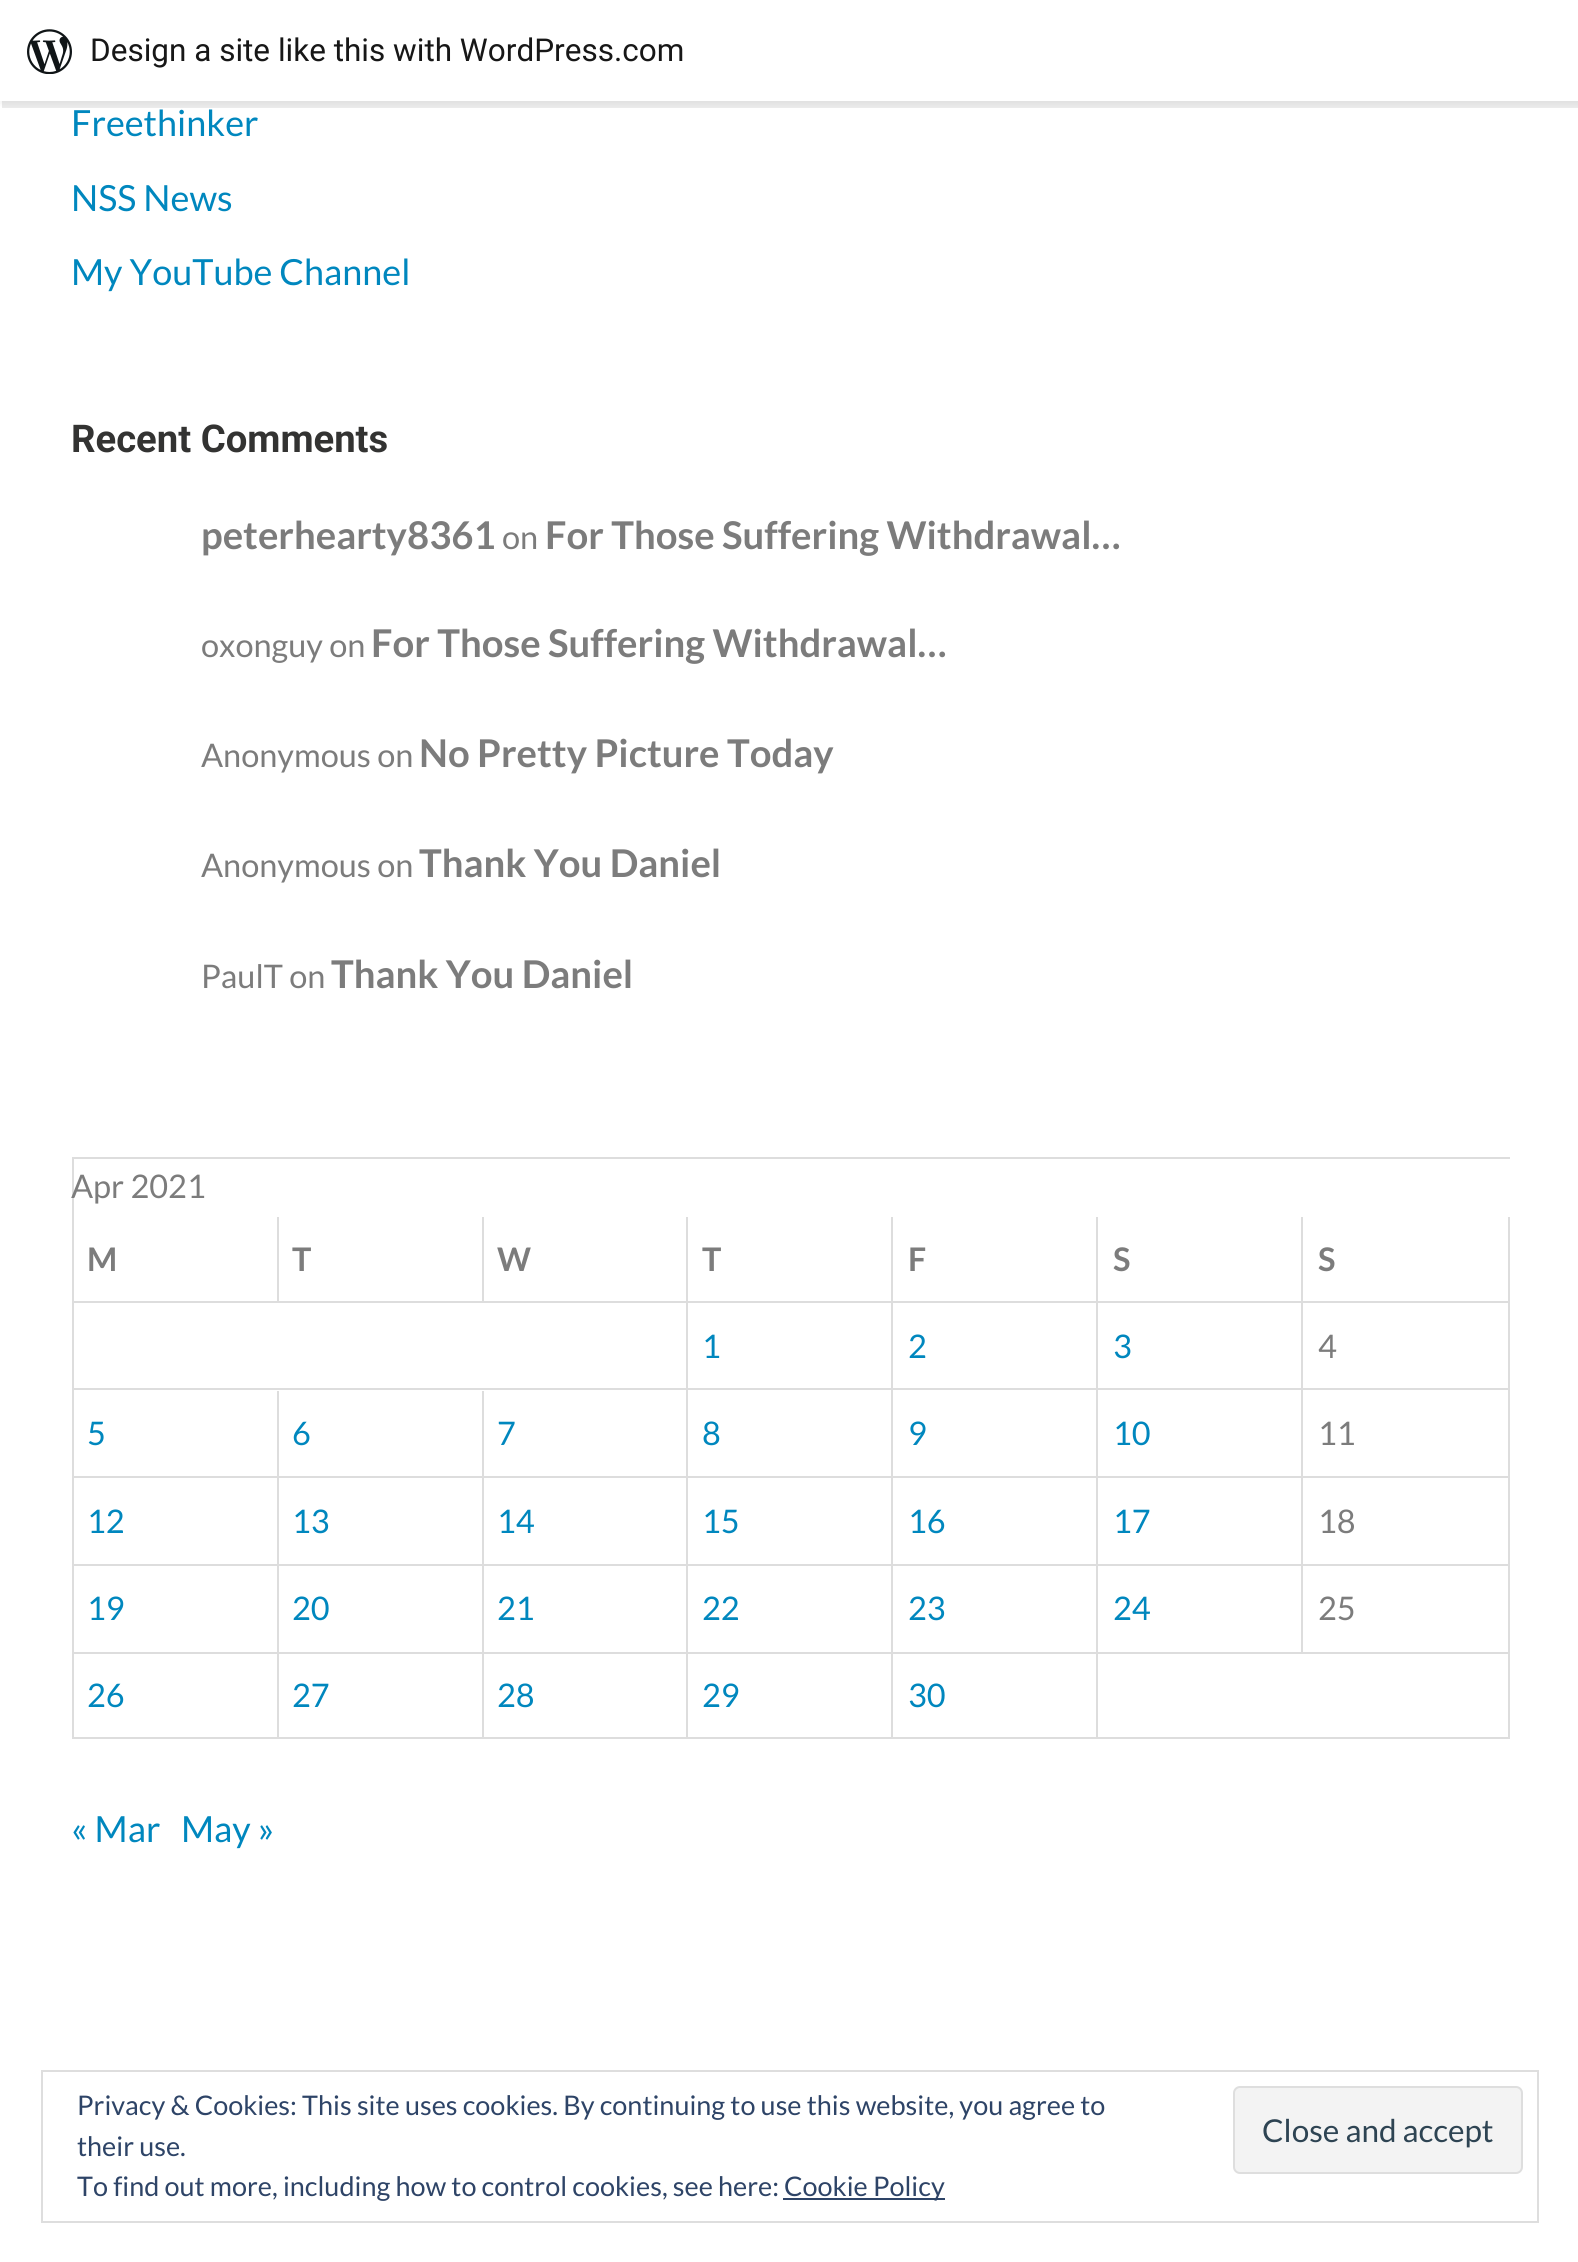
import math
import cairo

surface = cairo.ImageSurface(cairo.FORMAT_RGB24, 1578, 2262)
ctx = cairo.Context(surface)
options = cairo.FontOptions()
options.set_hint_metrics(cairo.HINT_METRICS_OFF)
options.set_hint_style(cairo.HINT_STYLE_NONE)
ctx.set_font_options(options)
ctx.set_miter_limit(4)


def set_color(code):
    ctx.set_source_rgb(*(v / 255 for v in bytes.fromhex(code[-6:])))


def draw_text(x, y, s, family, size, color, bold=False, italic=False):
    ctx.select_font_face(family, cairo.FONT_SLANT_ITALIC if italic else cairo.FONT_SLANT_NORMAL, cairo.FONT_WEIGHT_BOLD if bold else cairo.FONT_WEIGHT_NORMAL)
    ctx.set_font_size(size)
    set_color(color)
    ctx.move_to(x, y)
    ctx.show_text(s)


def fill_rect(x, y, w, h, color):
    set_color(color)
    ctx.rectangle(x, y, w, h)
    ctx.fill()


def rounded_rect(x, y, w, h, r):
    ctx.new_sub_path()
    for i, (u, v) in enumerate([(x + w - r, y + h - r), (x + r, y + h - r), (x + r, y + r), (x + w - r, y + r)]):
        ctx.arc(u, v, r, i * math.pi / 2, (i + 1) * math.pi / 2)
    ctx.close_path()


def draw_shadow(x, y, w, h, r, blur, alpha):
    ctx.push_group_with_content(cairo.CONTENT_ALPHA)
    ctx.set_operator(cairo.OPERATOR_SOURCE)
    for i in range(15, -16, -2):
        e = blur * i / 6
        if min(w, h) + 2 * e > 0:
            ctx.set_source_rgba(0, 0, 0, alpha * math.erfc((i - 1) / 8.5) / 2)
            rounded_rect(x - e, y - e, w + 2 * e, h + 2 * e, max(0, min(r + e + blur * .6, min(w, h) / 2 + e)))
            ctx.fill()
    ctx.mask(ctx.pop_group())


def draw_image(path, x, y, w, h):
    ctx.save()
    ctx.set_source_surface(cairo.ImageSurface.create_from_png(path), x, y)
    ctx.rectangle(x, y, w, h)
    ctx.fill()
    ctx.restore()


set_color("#ffffff")
ctx.paint()
set_color("#000000")
draw_shadow(0, 2, 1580, 102, 0, 2, 0.05)
ctx.set_source_rgba(0, 0, 0, 0.08)
ctx.new_path()
ctx.move_to(2, 101)
ctx.line_to(2, 108)
ctx.line_to(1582, 108)
ctx.line_to(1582, 7)
ctx.line_to(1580, 7)
ctx.line_to(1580, 101)
ctx.close_path()
ctx.fill()
fill_rect(0, 0, 1578, 101, "#ffffff")
draw_image("assets/img1.png", 27, 29, 45, 45)
draw_text(90, 61, "Design a site like this with WordPress.com", "Roboto", 31.5, "#171717")
draw_text(71, 136, "Freethinker", "Lato", 36, "#0087be")
draw_text(71, 211, "NSS News", "Lato", 36, "#0087be")
draw_text(71, 285, "My YouTube Channel", "Lato", 36, "#0087be")
draw_text(71, 452, "Recent Comments", "Roboto", 38.25, "#333332", bold=True)
draw_text(201, 549, "peterhearty8361", "Lato", 38.25, "#7c7c7c", bold=True)
draw_text(502, 549, "on", "Lato", 32.5, "#7c7c7c")
draw_text(545, 549, "For Those Suffering Withdrawal…", "Lato", 38.25, "#7c7c7c", bold=True)
draw_text(201, 657, "oxonguy on", "Lato", 32.5, "#7c7c7c")
draw_text(371, 657, "For Those Suffering Withdrawal…", "Lato", 38.25, "#7c7c7c", bold=True)
draw_text(201, 767, "Anonymous on", "Lato", 32.5, "#7c7c7c")
draw_text(419, 767, "No Pretty Picture Today", "Lato", 38.25, "#7c7c7c", bold=True)
draw_text(201, 877, "Anonymous on", "Lato", 32.5, "#7c7c7c")
draw_text(419, 877, "Thank You Daniel", "Lato", 38.25, "#7c7c7c", bold=True)
draw_text(201, 988, "PaulT on", "Lato", 32.5, "#7c7c7c")
draw_text(331, 988, "Thank You Daniel", "Lato", 38.25, "#7c7c7c", bold=True)
fill_rect(72, 1157, 1438, 2, "#dddddd")
fill_rect(72, 1157, 2, 582, "#dddddd")
draw_text(71, 1198, "Apr 2021", "Lato", 32.5, "#7c7c7c")
fill_rect(277, 1217, 2, 86, "#dddddd")
fill_rect(74, 1301, 205, 2, "#dddddd")
draw_text(87, 1271, "M", "Lato", 32.5, "#7c7c7c", bold=True)
fill_rect(482, 1217, 2, 86, "#dddddd")
fill_rect(279, 1301, 205, 2, "#dddddd")
draw_text(292, 1271, "T", "Lato", 32.5, "#7c7c7c", bold=True)
fill_rect(686, 1217, 2, 522, "#dddddd")
fill_rect(484, 1301, 205, 2, "#dddddd")
draw_text(497, 1271, "W", "Lato", 32.5, "#7c7c7c", bold=True)
fill_rect(891, 1217, 2, 522, "#dddddd")
fill_rect(689, 1301, 204, 2, "#dddddd")
draw_text(702, 1271, "T", "Lato", 32.5, "#7c7c7c", bold=True)
fill_rect(1096, 1217, 2, 522, "#dddddd")
fill_rect(893, 1301, 205, 2, "#dddddd")
draw_text(908, 1271, "F", "Lato", 32.5, "#7c7c7c", bold=True)
fill_rect(1301, 1217, 2, 437, "#dddddd")
fill_rect(1098, 1301, 205, 2, "#dddddd")
draw_text(1113, 1271, "S", "Lato", 32.5, "#7c7c7c", bold=True)
fill_rect(1508, 1217, 2, 522, "#dddddd")
fill_rect(1303, 1301, 207, 2, "#dddddd")
draw_text(1318, 1271, "S", "Lato", 32.5, "#7c7c7c", bold=True)
draw_text(702, 1358, "1", "Lato", 32.5, "#0087be")
draw_text(908, 1358, "2", "Lato", 32.5, "#0087be")
draw_text(1113, 1358, "3", "Lato", 32.5, "#0087be")
draw_text(1318, 1358, "4", "Lato", 32.5, "#7c7c7c")
fill_rect(74, 1388, 1436, 2, "#dddddd")
fill_rect(277, 1391, 2, 348, "#dddddd")
fill_rect(74, 1476, 205, 2, "#dddddd")
draw_text(87, 1445, "5", "Lato", 32.5, "#0087be")
fill_rect(482, 1391, 2, 348, "#dddddd")
fill_rect(279, 1476, 1231, 2, "#dddddd")
draw_text(292, 1445, "6", "Lato", 32.5, "#0087be")
draw_text(497, 1445, "7", "Lato", 32.5, "#0087be")
draw_text(702, 1445, "8", "Lato", 32.5, "#0087be")
draw_text(908, 1445, "9", "Lato", 32.5, "#0087be")
draw_text(1113, 1445, "10", "Lato", 32.5, "#0087be")
draw_text(1318, 1445, "11", "Lato", 32.5, "#7c7c7c")
fill_rect(74, 1564, 1436, 2, "#dddddd")
draw_text(87, 1533, "12", "Lato", 32.5, "#0087be")
draw_text(292, 1533, "13", "Lato", 32.5, "#0087be")
draw_text(497, 1533, "14", "Lato", 32.5, "#0087be")
draw_text(702, 1533, "15", "Lato", 32.5, "#0087be")
draw_text(908, 1533, "16", "Lato", 32.5, "#0087be")
draw_text(1113, 1533, "17", "Lato", 32.5, "#0087be")
draw_text(1318, 1533, "18", "Lato", 32.5, "#7c7c7c")
fill_rect(74, 1652, 1436, 2, "#dddddd")
draw_text(87, 1620, "19", "Lato", 32.5, "#0087be")
draw_text(292, 1620, "20", "Lato", 32.5, "#0087be")
draw_text(497, 1620, "21", "Lato", 32.5, "#0087be")
draw_text(702, 1620, "22", "Lato", 32.5, "#0087be")
draw_text(908, 1620, "23", "Lato", 32.5, "#0087be")
draw_text(1113, 1620, "24", "Lato", 32.5, "#0087be")
draw_text(1318, 1620, "25", "Lato", 32.5, "#7c7c7c")
fill_rect(74, 1737, 1436, 2, "#dddddd")
draw_text(87, 1707, "26", "Lato", 32.5, "#0087be")
draw_text(292, 1707, "27", "Lato", 32.5, "#0087be")
draw_text(497, 1707, "28", "Lato", 32.5, "#0087be")
draw_text(702, 1707, "29", "Lato", 32.5, "#0087be")
draw_text(908, 1707, "30", "Lato", 32.5, "#0087be")
draw_text(71, 1842, "« Mar", "Lato", 36, "#0087be")
draw_text(181, 1842, "May »", "Lato", 36, "#0087be")
ctx.rectangle(42, 2071, 1496, 151)
set_color("#dedede")
ctx.stroke()
draw_text(77, 2115, "Privacy & Cookies: This site uses cookies. By continuing to use this website, you agree to", "Lato", 27, "#2e4467")
draw_text(77, 2156, "their use.", "Lato", 27, "#2e4467")
set_color("#f3f3f3")
rounded_rect(1234, 2087, 288, 86, 6)
ctx.fill_preserve()
set_color("#dedede")
ctx.stroke()
draw_text(1262, 2142, "Close and accept", "Lato", 31.5, "#2e4453")
draw_text(77, 2196, "To find out more, including how to control cookies, see here:", "Lato", 27, "#2e4467")
fill_rect(783, 2198, 162, 2, "#2e4467")
draw_text(784, 2196, "Cookie Policy", "Lato", 27, "#2e4467")
surface.write_to_png("output.png")
